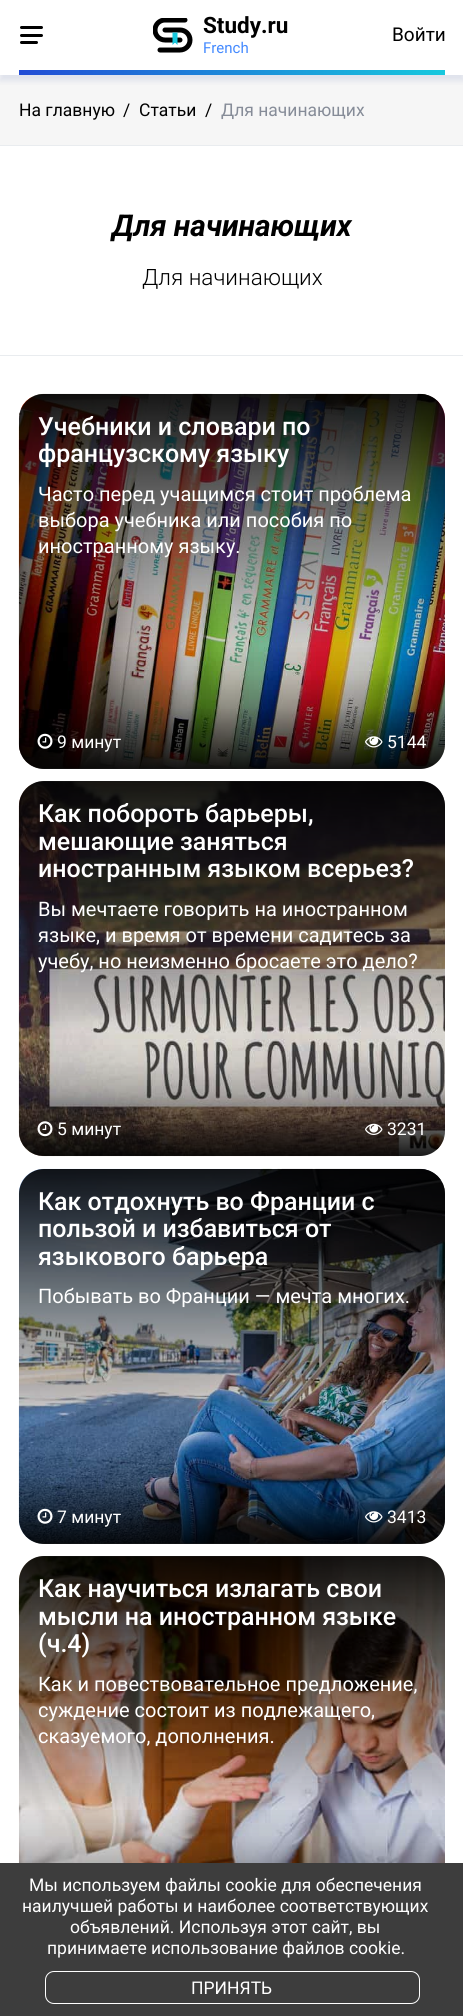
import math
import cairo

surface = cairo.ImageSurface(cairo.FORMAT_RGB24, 463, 2016)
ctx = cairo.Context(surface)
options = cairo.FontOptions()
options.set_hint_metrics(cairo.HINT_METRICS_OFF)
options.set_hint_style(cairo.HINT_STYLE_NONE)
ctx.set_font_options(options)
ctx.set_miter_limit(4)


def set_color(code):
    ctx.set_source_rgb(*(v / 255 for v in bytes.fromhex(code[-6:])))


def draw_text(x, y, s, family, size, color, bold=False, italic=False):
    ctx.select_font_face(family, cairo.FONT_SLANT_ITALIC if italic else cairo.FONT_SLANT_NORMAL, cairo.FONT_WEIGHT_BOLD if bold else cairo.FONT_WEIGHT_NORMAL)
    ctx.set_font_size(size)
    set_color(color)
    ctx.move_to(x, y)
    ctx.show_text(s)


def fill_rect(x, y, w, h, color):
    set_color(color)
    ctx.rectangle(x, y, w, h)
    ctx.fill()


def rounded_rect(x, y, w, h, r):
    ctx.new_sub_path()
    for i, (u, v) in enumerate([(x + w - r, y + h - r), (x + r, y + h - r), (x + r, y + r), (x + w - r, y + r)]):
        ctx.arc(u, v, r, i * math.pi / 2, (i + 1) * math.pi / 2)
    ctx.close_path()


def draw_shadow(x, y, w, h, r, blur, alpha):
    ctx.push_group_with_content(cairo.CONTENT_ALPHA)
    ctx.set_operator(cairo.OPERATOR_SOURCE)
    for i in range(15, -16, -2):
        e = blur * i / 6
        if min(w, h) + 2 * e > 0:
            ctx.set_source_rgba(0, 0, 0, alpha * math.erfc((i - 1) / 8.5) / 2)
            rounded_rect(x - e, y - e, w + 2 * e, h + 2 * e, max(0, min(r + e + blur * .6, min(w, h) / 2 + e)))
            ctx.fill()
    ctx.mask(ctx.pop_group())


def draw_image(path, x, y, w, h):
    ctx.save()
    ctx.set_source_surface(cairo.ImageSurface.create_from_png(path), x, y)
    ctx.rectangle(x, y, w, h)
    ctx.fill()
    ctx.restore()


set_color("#ffffff")
ctx.paint()
fill_rect(0, 75, 463, 70, "#f6f6f6")
ctx.save()
ctx.rectangle(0, 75, 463, 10)
ctx.clip()
set_color("#a8b3d3")
draw_shadow(0, 6, 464, 75, 0, 3, 0.3)
ctx.restore()
set_color("#000000")
rounded_rect(20, 26, 23, 3, 1.5)
ctx.fill()
rounded_rect(20, 34, 23, 3, 1.5)
ctx.fill()
rounded_rect(20, 41, 18, 3, 1.5)
ctx.fill()
draw_image("assets/img1.png", 153, 18, 40, 35)
draw_text(203, 33, "Study.ru", "Roboto", 22.5, "#000000", bold=True)
draw_text(203, 53, "French", "Roboto", 15, "#448aff")
draw_text(392, 41, "Войти", "Roboto", 19, "#000000")
gradient = cairo.LinearGradient(19, 73, 445, 72)
gradient.add_color_stop_rgba(0, 0.133, 0.298, 0.835, 1)
gradient.add_color_stop_rgba(1, 0.09, 0.784, 0.871, 1)
ctx.set_source(gradient)
ctx.rectangle(19, 70, 426, 5)
ctx.fill()
draw_text(19, 116, "На главную", "Roboto", 17.5, "#000000")
draw_text(123, 116, "/", "Roboto", 17.5, "#000000")
draw_text(139, 116, "Статьи", "Roboto", 17.5, "#000000")
draw_text(205, 116, "/", "Roboto", 17.5, "#000000")
draw_text(221, 116, "Для начинающих", "Roboto", 17.5, "#868c98")
fill_rect(0, 145, 463, 1, "#e9ecef")
fill_rect(0, 355, 463, 1, "#e9ecef")
draw_text(112, 236, "Для начинающих", "Roboto", 30, "#000000", bold=True, italic=True)
draw_text(142, 285, "Для начинающих", "Roboto Light", 22.5, "#000000")
draw_image("assets/img2.png", 18, 393, 427, 376)
gradient = cairo.LinearGradient(232, 769, 232, 394)
gradient.add_color_stop_rgba(0, 0, 0, 0, 0)
gradient.add_color_stop_rgba(0.25, 0, 0, 0, 0)
gradient.add_color_stop_rgba(0.5, 0, 0, 0, 0.3)
gradient.add_color_stop_rgba(1, 0, 0, 0, 0.9)
ctx.set_source(gradient)
rounded_rect(19, 394, 426, 375, 25)
ctx.fill()
draw_text(38, 435, "Учебники и словари по", "Roboto Medium", 25, "#ffffff")
draw_text(38, 462, "французскому языку", "Roboto Medium", 25, "#ffffff")
draw_text(38, 501, "Часто перед учащимся стоит проблема", "Roboto", 20, "#ffffff")
draw_text(38, 527, "выбора учебника или пособия по", "Roboto", 20, "#ffffff")
draw_text(38, 553, "иностранному языку.", "Roboto", 20, "#ffffff")
gradient = cairo.LinearGradient(232, 644, 232, 769)
gradient.add_color_stop_rgba(0, 0, 0, 0, 0)
gradient.add_color_stop_rgba(0.5, 0, 0, 0, 0.3)
gradient.add_color_stop_rgba(1, 0, 0, 0, 0.9)
ctx.set_source(gradient)
ctx.new_path()
ctx.move_to(19, 644)
ctx.line_to(445, 644)
ctx.line_to(445, 744)
ctx.curve_to(445, 758, 434, 769, 420, 769)
ctx.line_to(44, 769)
ctx.curve_to(30, 769, 19, 758, 19, 744)
ctx.close_path()
ctx.fill()
draw_image("assets/img3.png", 37, 733, 16, 16)
draw_text(57, 748, "9 минут", "Roboto", 17.5, "#ffffff")
draw_image("assets/img4.png", 365, 736, 18, 12)
draw_text(387, 748, "5144", "Roboto", 17.5, "#ffffff")
draw_image("assets/img5.png", 18, 781, 427, 376)
gradient = cairo.LinearGradient(232, 1156, 232, 781)
gradient.add_color_stop_rgba(0, 0, 0, 0, 0)
gradient.add_color_stop_rgba(0.25, 0, 0, 0, 0)
gradient.add_color_stop_rgba(0.5, 0, 0, 0, 0.3)
gradient.add_color_stop_rgba(1, 0, 0, 0, 0.9)
ctx.set_source(gradient)
rounded_rect(19, 781, 426, 375, 25)
ctx.fill()
draw_text(38, 822, "Как побороть барьеры,", "Roboto Medium", 25, "#ffffff")
draw_text(38, 850, "мешающие заняться", "Roboto Medium", 25, "#ffffff")
draw_text(38, 877, "иностранным языком всерьез?", "Roboto Medium", 25, "#ffffff")
draw_text(38, 916, "Вы мечтаете говорить на иностранном", "Roboto", 20, "#ffffff")
draw_text(38, 942, "языке, и время от времени садитесь за", "Roboto", 20, "#ffffff")
draw_text(38, 968, "учебу, но неизменно бросаете это дело?", "Roboto", 20, "#ffffff")
gradient = cairo.LinearGradient(232, 1031, 232, 1156)
gradient.add_color_stop_rgba(0, 0, 0, 0, 0)
gradient.add_color_stop_rgba(0.5, 0, 0, 0, 0.3)
gradient.add_color_stop_rgba(1, 0, 0, 0, 0.9)
ctx.set_source(gradient)
ctx.new_path()
ctx.move_to(19, 1031)
ctx.line_to(445, 1031)
ctx.line_to(445, 1131)
ctx.curve_to(445, 1145, 434, 1156, 420, 1156)
ctx.line_to(44, 1156)
ctx.curve_to(30, 1156, 19, 1145, 19, 1131)
ctx.close_path()
ctx.fill()
draw_image("assets/img6.png", 37, 1121, 16, 16)
draw_text(57, 1135, "5 минут", "Roboto", 17.5, "#ffffff")
draw_image("assets/img7.png", 365, 1123, 18, 12)
draw_text(387, 1135, "3231", "Roboto", 17.5, "#ffffff")
draw_image("assets/img8.png", 18, 1168, 427, 376)
gradient = cairo.LinearGradient(232, 1544, 232, 1169)
gradient.add_color_stop_rgba(0, 0, 0, 0, 0)
gradient.add_color_stop_rgba(0.25, 0, 0, 0, 0)
gradient.add_color_stop_rgba(0.5, 0, 0, 0, 0.3)
gradient.add_color_stop_rgba(1, 0, 0, 0, 0.9)
ctx.set_source(gradient)
rounded_rect(19, 1169, 426, 375, 25)
ctx.fill()
draw_text(38, 1210, "Как отдохнуть во Франции с", "Roboto Medium", 25, "#ffffff")
draw_text(38, 1237, "пользой и избавиться от", "Roboto Medium", 25, "#ffffff")
draw_text(38, 1265, "языкового барьера", "Roboto Medium", 25, "#ffffff")
draw_text(38, 1303, "Побывать во Франции — мечта многих.", "Roboto", 20, "#ffffff")
gradient = cairo.LinearGradient(232, 1419, 232, 1544)
gradient.add_color_stop_rgba(0, 0, 0, 0, 0)
gradient.add_color_stop_rgba(0.5, 0, 0, 0, 0.3)
gradient.add_color_stop_rgba(1, 0, 0, 0, 0.9)
ctx.set_source(gradient)
ctx.new_path()
ctx.move_to(19, 1419)
ctx.line_to(445, 1419)
ctx.line_to(445, 1519)
ctx.curve_to(445, 1533, 434, 1544, 420, 1544)
ctx.line_to(44, 1544)
ctx.curve_to(30, 1544, 19, 1533, 19, 1519)
ctx.close_path()
ctx.fill()
draw_image("assets/img9.png", 37, 1508, 16, 16)
draw_text(57, 1523, "7 минут", "Roboto", 17.5, "#ffffff")
draw_image("assets/img10.png", 365, 1511, 18, 12)
draw_text(387, 1523, "3413", "Roboto", 17.5, "#ffffff")
draw_image("assets/img11.png", 18, 1556, 427, 307)
gradient = cairo.LinearGradient(232, 1931, 232, 1556)
gradient.add_color_stop_rgba(0, 0, 0, 0, 0)
gradient.add_color_stop_rgba(0.25, 0, 0, 0, 0)
gradient.add_color_stop_rgba(0.5, 0, 0, 0, 0.3)
gradient.add_color_stop_rgba(1, 0, 0, 0, 0.9)
ctx.set_source(gradient)
rounded_rect(19, 1556, 426, 375, 25)
ctx.fill()
draw_text(38, 1597, "Как научиться излагать свои", "Roboto Medium", 25, "#ffffff")
draw_text(38, 1625, "мысли на иностранном языке", "Roboto Medium", 25, "#ffffff")
draw_text(38, 1652, "(ч.4)", "Roboto Medium", 25, "#ffffff")
draw_text(38, 1691, "Как и повествовательное предложение,", "Roboto", 20, "#ffffff")
draw_text(38, 1717, "суждение состоит из подлежащего,", "Roboto", 20, "#ffffff")
draw_text(38, 1743, "сказуемого, дополнения.", "Roboto", 20, "#ffffff")
gradient = cairo.LinearGradient(232, 1806, 232, 1931)
gradient.add_color_stop_rgba(0, 0, 0, 0, 0)
gradient.add_color_stop_rgba(0.5, 0, 0, 0, 0.3)
gradient.add_color_stop_rgba(1, 0, 0, 0, 0.9)
ctx.set_source(gradient)
ctx.rectangle(19, 1810, 426, 53)
ctx.fill()
fill_rect(0, 1863, 463, 153, "#3d3d3d")
draw_text(29, 1891, "Мы используем файлы cookie для обеспечения", "Roboto", 17.5, "#ffffff")
draw_text(22, 1912, "наилучшей работы и наиболее соответствующих", "Roboto", 17.5, "#ffffff")
draw_text(70, 1933, "объявлений. Используя этот сайт, вы", "Roboto", 17.5, "#ffffff")
draw_text(47, 1954, "принимаете использование файлов cookie.", "Roboto", 17.5, "#ffffff")
rounded_rect(45.5, 1971.5, 374, 32, 8.5)
ctx.set_line_width(1)
ctx.stroke()
draw_text(191, 1994, "ПРИНЯТЬ", "Roboto", 17.5, "#ffffff")
surface.write_to_png("output.png")
